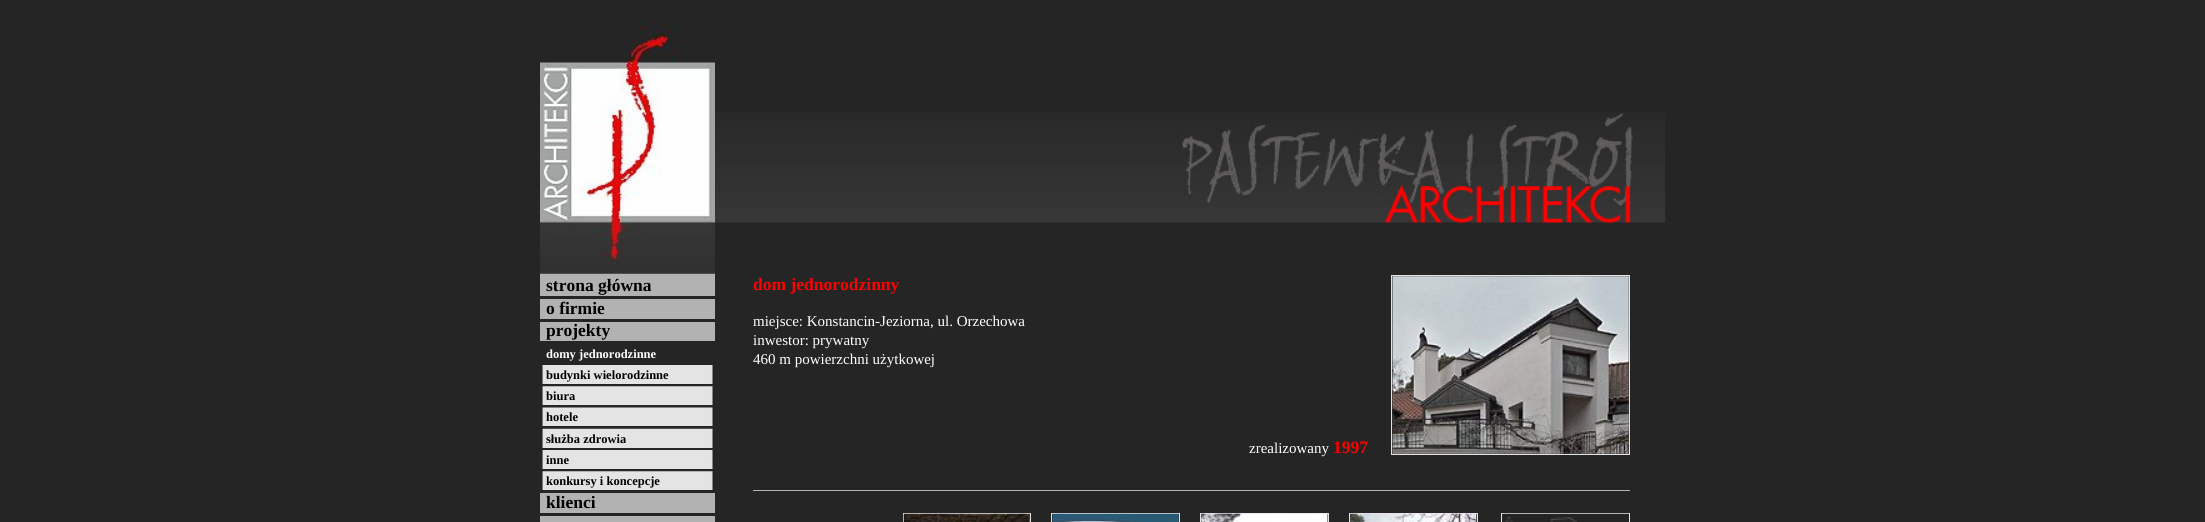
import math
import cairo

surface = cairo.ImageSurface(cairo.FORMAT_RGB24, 2205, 522)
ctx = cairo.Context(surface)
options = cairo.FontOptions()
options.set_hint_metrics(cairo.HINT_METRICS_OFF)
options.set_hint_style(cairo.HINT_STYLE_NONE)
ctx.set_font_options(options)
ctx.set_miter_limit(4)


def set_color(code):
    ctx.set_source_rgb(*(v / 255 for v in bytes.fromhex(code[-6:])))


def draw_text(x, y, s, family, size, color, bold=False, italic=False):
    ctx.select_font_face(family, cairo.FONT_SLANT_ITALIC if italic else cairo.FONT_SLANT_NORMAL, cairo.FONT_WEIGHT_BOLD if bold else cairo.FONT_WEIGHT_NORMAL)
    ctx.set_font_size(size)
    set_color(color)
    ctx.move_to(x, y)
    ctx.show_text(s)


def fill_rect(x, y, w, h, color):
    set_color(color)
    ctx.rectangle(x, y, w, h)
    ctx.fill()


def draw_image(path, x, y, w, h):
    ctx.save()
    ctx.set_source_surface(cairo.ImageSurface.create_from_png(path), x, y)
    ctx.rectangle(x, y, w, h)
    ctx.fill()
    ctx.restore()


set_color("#252525")
ctx.paint()
fill_rect(540, 273, 175, 249, "#b2b2b2")
draw_image("assets/img1.png", 540, 0, 175, 274)
fill_rect(540, 296, 175, 3, "#252525")
draw_text(546, 291, "strona główna", "Liberation Serif", 17.5, "#000000", bold=True)
fill_rect(540, 319, 175, 3, "#252525")
draw_text(546, 314, "o firmie", "Liberation Serif", 17.5, "#000000", bold=True)
fill_rect(540, 341, 175, 24, "#252525")
draw_text(546, 336, "projekty", "Liberation Serif", 17.5, "#000000", bold=True)
draw_text(546, 358, "domy jednorodzinne", "Liberation Serif", 12.5, "#ffffff", bold=True)
draw_image("assets/img2.png", 540, 365, 175, 19)
fill_rect(540, 384, 175, 3, "#252525")
draw_text(546, 379, "budynki wielorodzinne", "Liberation Serif", 12.5, "#000000", bold=True)
draw_image("assets/img3.png", 540, 386, 175, 19)
fill_rect(540, 405, 175, 3, "#252525")
draw_text(546, 400, "biura", "Liberation Serif", 12.5, "#000000", bold=True)
draw_image("assets/img4.png", 540, 407, 175, 19)
fill_rect(540, 426, 175, 3, "#252525")
draw_text(546, 421, "hotele", "Liberation Serif", 12.5, "#000000", bold=True)
draw_image("assets/img5.png", 540, 428, 175, 20)
fill_rect(540, 448, 175, 2, "#252525")
draw_text(546, 443, "służba zdrowia", "Liberation Serif", 12.5, "#000000", bold=True)
draw_image("assets/img2.png", 540, 450, 175, 19)
fill_rect(540, 469, 175, 3, "#252525")
draw_text(546, 464, "inne", "Liberation Serif", 12.5, "#000000", bold=True)
draw_image("assets/img3.png", 540, 471, 175, 19)
fill_rect(540, 490, 175, 3, "#252525")
draw_text(546, 485, "konkursy i koncepcje", "Liberation Serif", 12.5, "#000000", bold=True)
fill_rect(540, 513, 175, 3, "#252525")
draw_text(546, 508, "klienci", "Liberation Serif", 17.5, "#000000", bold=True)
draw_image("assets/img6.png", 715, 112, 950, 111)
draw_text(753, 290, "dom jednorodzinny", "Liberation Serif", 17.5, "#fe0000", bold=True)
draw_text(753, 326, "miejsce: Konstancin-Jeziorna, ul. Orzechowa", "Liberation Serif", 15, "#ffffff")
draw_text(753, 345, "inwestor: prywatny", "Liberation Serif", 15, "#ffffff")
draw_text(753, 364, "460 m powierzchni użytkowej", "Liberation Serif", 15, "#ffffff")
draw_text(1249, 453, "zrealizowany", "Liberation Serif", 15, "#ffffff")
draw_text(1333, 453, "1997", "Liberation Serif", 17.5, "#fe0000", bold=True)
ctx.rectangle(1391.5, 275.5, 238, 179)
set_color("#e4e2e7")
ctx.set_line_width(1)
ctx.stroke()
draw_image("assets/img7.png", 1392, 276, 237, 178)
fill_rect(753, 490, 877, 1, "#b2b2b2")
ctx.rectangle(903.5, 513.5, 127, 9)
set_color("#e4e2e7")
ctx.stroke()
draw_image("assets/img8.png", 903, 513, 127, 9)
ctx.rectangle(1051.5, 513.5, 128, 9)
ctx.stroke()
draw_image("assets/img9.png", 1052, 513, 127, 9)
ctx.rectangle(1200.5, 513.5, 128, 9)
ctx.stroke()
draw_image("assets/img10.png", 1201, 513, 127, 9)
ctx.rectangle(1349.5, 513.5, 128, 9)
ctx.stroke()
draw_image("assets/img11.png", 1350, 513, 127, 9)
ctx.rectangle(1501.5, 513.5, 128, 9)
ctx.stroke()
draw_image("assets/img12.png", 1502, 513, 127, 9)
surface.write_to_png("output.png")
